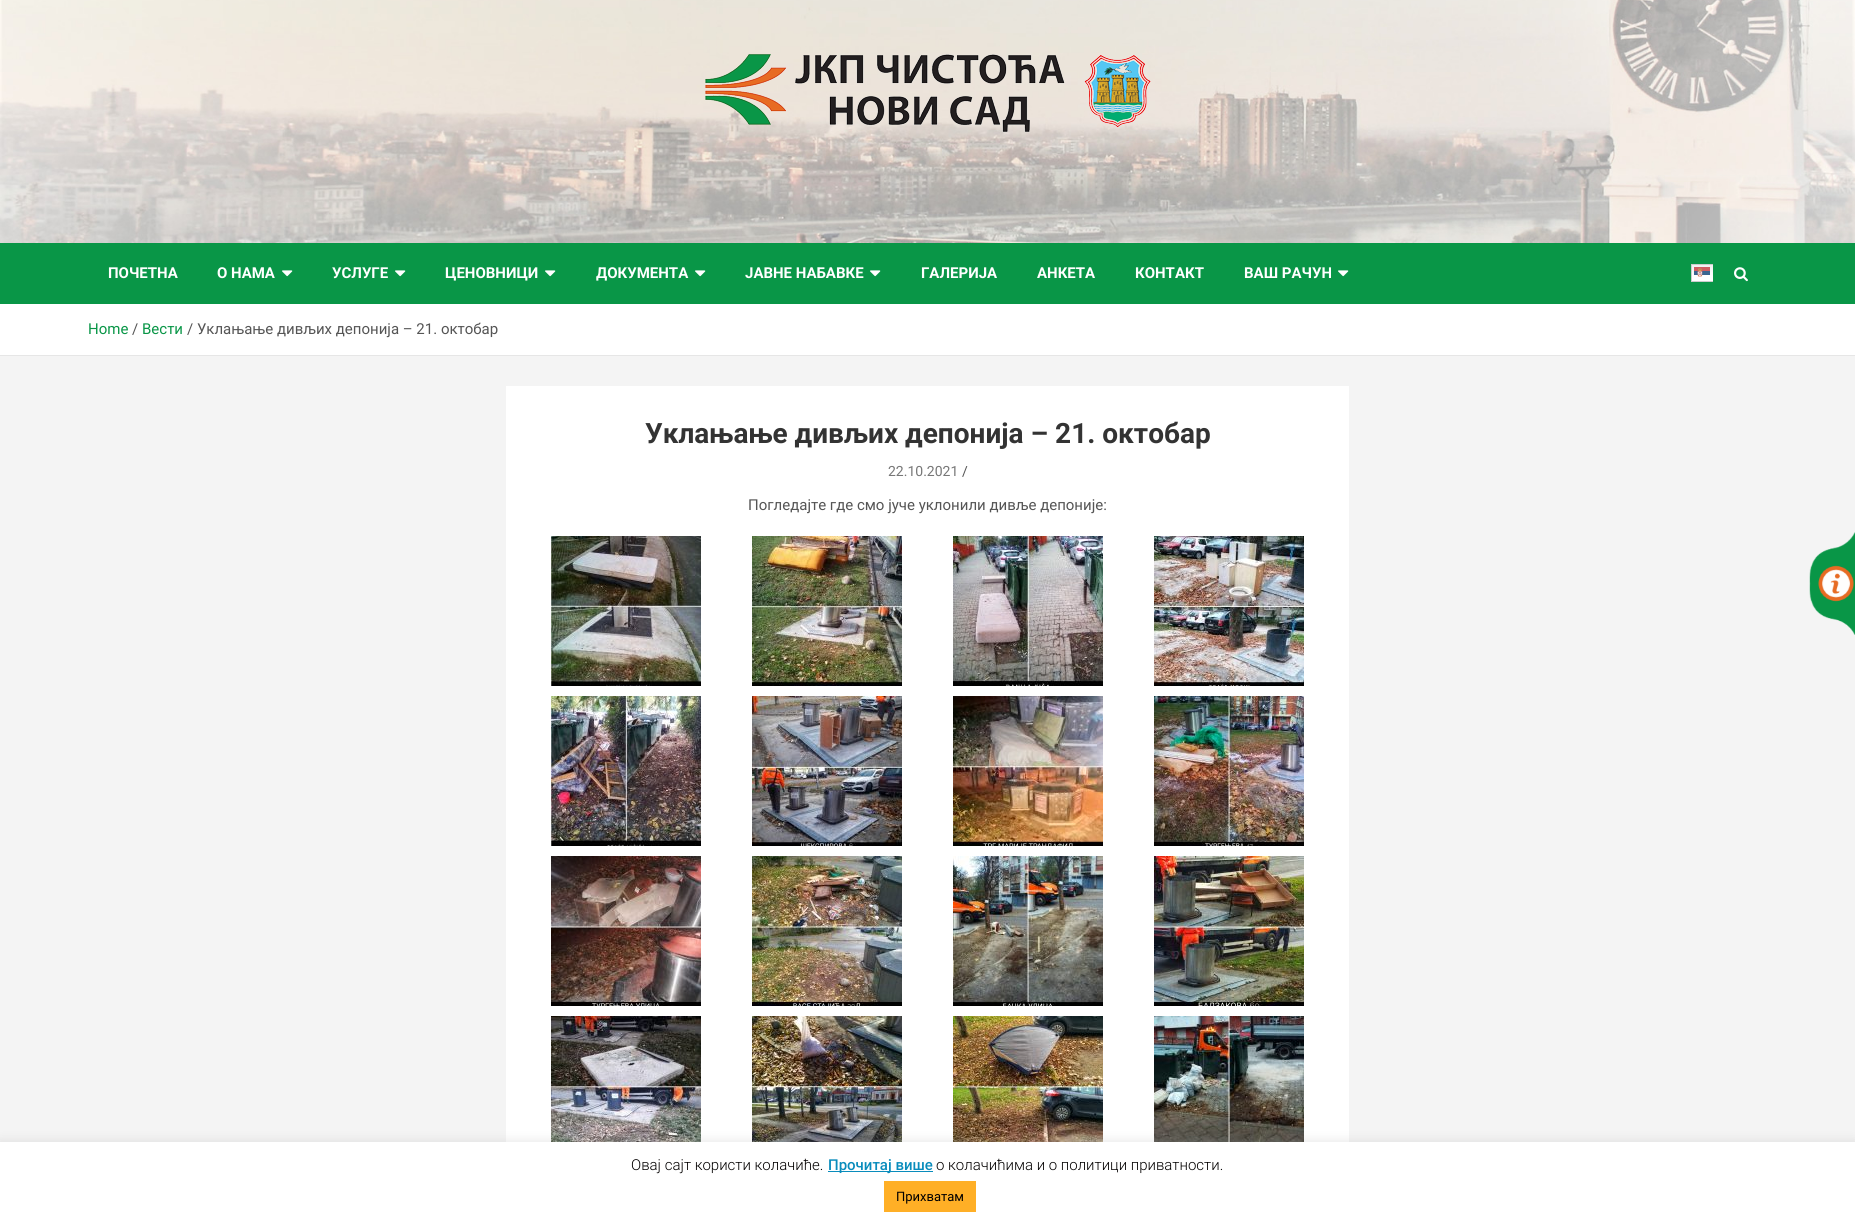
import math
import cairo

surface = cairo.ImageSurface(cairo.FORMAT_RGB24, 1855, 1224)
ctx = cairo.Context(surface)
options = cairo.FontOptions()
options.set_hint_metrics(cairo.HINT_METRICS_OFF)
options.set_hint_style(cairo.HINT_STYLE_NONE)
ctx.set_font_options(options)
ctx.set_miter_limit(4)


def set_color(code):
    ctx.set_source_rgb(*(v / 255 for v in bytes.fromhex(code[-6:])))


def draw_text(x, y, s, family, size, color, bold=False, italic=False):
    ctx.select_font_face(family, cairo.FONT_SLANT_ITALIC if italic else cairo.FONT_SLANT_NORMAL, cairo.FONT_WEIGHT_BOLD if bold else cairo.FONT_WEIGHT_NORMAL)
    ctx.set_font_size(size)
    set_color(color)
    ctx.move_to(x, y)
    ctx.show_text(s)


def fill_rect(x, y, w, h, color):
    set_color(color)
    ctx.rectangle(x, y, w, h)
    ctx.fill()


def rounded_rect(x, y, w, h, r):
    ctx.new_sub_path()
    for i, (u, v) in enumerate([(x + w - r, y + h - r), (x + r, y + h - r), (x + r, y + r), (x + w - r, y + r)]):
        ctx.arc(u, v, r, i * math.pi / 2, (i + 1) * math.pi / 2)
    ctx.close_path()


def draw_shadow(x, y, w, h, r, blur, alpha):
    ctx.push_group_with_content(cairo.CONTENT_ALPHA)
    ctx.set_operator(cairo.OPERATOR_SOURCE)
    for i in range(15, -16, -2):
        e = blur * i / 6
        if min(w, h) + 2 * e > 0:
            ctx.set_source_rgba(0, 0, 0, alpha * math.erfc((i - 1) / 8.5) / 2)
            rounded_rect(x - e, y - e, w + 2 * e, h + 2 * e, max(0, min(r + e + blur * .6, min(w, h) / 2 + e)))
            ctx.fill()
    ctx.mask(ctx.pop_group())


def draw_image(path, x, y, w, h):
    ctx.save()
    ctx.set_source_surface(cairo.ImageSurface.create_from_png(path), x, y)
    ctx.rectangle(x, y, w, h)
    ctx.fill()
    ctx.restore()


set_color("#f4f4f4")
ctx.paint()
draw_image("assets/img1.png", 0, 0, 1855, 243)
draw_image("assets/img2.png", 705, 54, 446, 79)
fill_rect(0, 243, 1855, 61, "#099647")
draw_text(108, 278, "ПОЧЕТНА", "Roboto", 15, "#ffffff", bold=True)
draw_text(217, 278, "О НАМА", "Roboto", 15, "#ffffff", bold=True)
draw_image("assets/img3.png", 282, 270, 11, 7)
draw_text(332, 278, "УСЛУГЕ", "Roboto", 15, "#ffffff", bold=True)
draw_image("assets/img3.png", 395, 270, 11, 7)
draw_text(445, 278, "ЦЕНОВНИЦИ", "Roboto", 15, "#ffffff", bold=True)
draw_image("assets/img3.png", 545, 270, 11, 7)
draw_text(596, 278, "ДОКУМЕНТА", "Roboto", 15, "#ffffff", bold=True)
draw_image("assets/img3.png", 695, 270, 11, 7)
draw_text(745, 278, "ЈАВНЕ НАБАВКЕ", "Roboto", 15, "#ffffff", bold=True)
draw_image("assets/img3.png", 870, 270, 11, 7)
draw_text(921, 278, "ГАЛЕРИЈА", "Roboto", 15, "#ffffff", bold=True)
draw_text(1037, 278, "АНКЕТА", "Roboto", 15, "#ffffff", bold=True)
draw_text(1135, 278, "КОНТАКТ", "Roboto", 15, "#ffffff", bold=True)
draw_text(1244, 278, "ВАШ РАЧУН", "Roboto", 15, "#ffffff", bold=True)
draw_image("assets/img3.png", 1338, 270, 11, 7)
gradient = cairo.LinearGradient(1773, 264, 1773, 282)
gradient.add_color_stop_rgba(0, 0.937, 0.937, 0.937, 1)
gradient.add_color_stop_rgba(0.7, 1, 1, 1, 1)
ctx.set_source(gradient)
ctx.rectangle(1692, 265, 21, 16)
ctx.fill()
draw_image("assets/img5.png", 1734, 267, 14, 15)
ctx.save()
ctx.rectangle(1691, 264, 22, 18)
ctx.clip()
ctx.rectangle(1691.5, 264.5, 156, 17)
set_color("#cccccc")
ctx.set_line_width(1)
ctx.stroke()
ctx.restore()
draw_image("assets/img4.png", 1694, 267, 16, 10)
fill_rect(0, 304, 1855, 51, "#ffffff")
fill_rect(0, 355, 1855, 1, "#e6e6e6")
draw_text(88, 334, "Home", "Roboto", 15, "#099647")
draw_text(132, 334, "/", "Roboto", 15, "#555555")
draw_text(142, 334, "Вести", "Roboto", 15, "#099647")
draw_text(187, 334, "/ Уклањање дивљих депонија – 21. октобар", "Roboto", 15, "#555555")
fill_rect(506, 386, 843, 756, "#ffffff")
draw_text(645, 443, "Уклањање дивљих депонија – 21. октобар", "Roboto", 28, "#333333", bold=True)
draw_text(888, 476, "22.10.2021", "Roboto", 14, "#777777")
draw_text(962, 476, "/", "Roboto", 14, "#555555")
draw_text(748, 510, "Погледајте где смо јуче уклонили дивље депоније:", "Roboto", 15, "#555555")
draw_image("assets/img6.png", 551, 536, 150, 150)
draw_image("assets/img7.png", 752, 536, 150, 150)
draw_image("assets/img8.png", 953, 536, 150, 150)
draw_image("assets/img9.png", 1154, 536, 150, 150)
draw_image("assets/img10.png", 551, 696, 150, 150)
draw_image("assets/img11.png", 752, 696, 150, 150)
draw_image("assets/img12.png", 953, 696, 150, 150)
draw_image("assets/img13.png", 1154, 696, 150, 150)
draw_image("assets/img14.png", 551, 856, 150, 150)
draw_image("assets/img15.png", 752, 856, 150, 150)
draw_image("assets/img16.png", 953, 856, 150, 150)
draw_image("assets/img17.png", 1154, 856, 150, 150)
draw_image("assets/img18.png", 551, 1016, 150, 126)
draw_image("assets/img19.png", 752, 1016, 150, 126)
draw_image("assets/img20.png", 953, 1016, 150, 126)
draw_image("assets/img21.png", 1154, 1016, 150, 126)
draw_image("assets/img22.png", 1809, 532, 46, 103)
set_color("#acabab")
draw_shadow(0, 1141, 1855, 82, 0, 5, 0.3)
fill_rect(0, 1142, 1855, 82, "#ffffff")
draw_text(631, 1170, "Овај сајт користи колачиће.", "Roboto Light", 15, "#020000")
fill_rect(828, 1171, 105, 1, "#098cbc")
draw_text(828, 1170, "Прочитај више", "Roboto Medium", 15, "#098cbc")
draw_text(936, 1170, "о колачићима и о политици приватности.", "Roboto Light", 15, "#020000")
fill_rect(884, 1181, 92, 31, "#ffaf26")
draw_text(896, 1201, "Прихватам", "Roboto", 13, "#020000")
surface.write_to_png("output.png")
